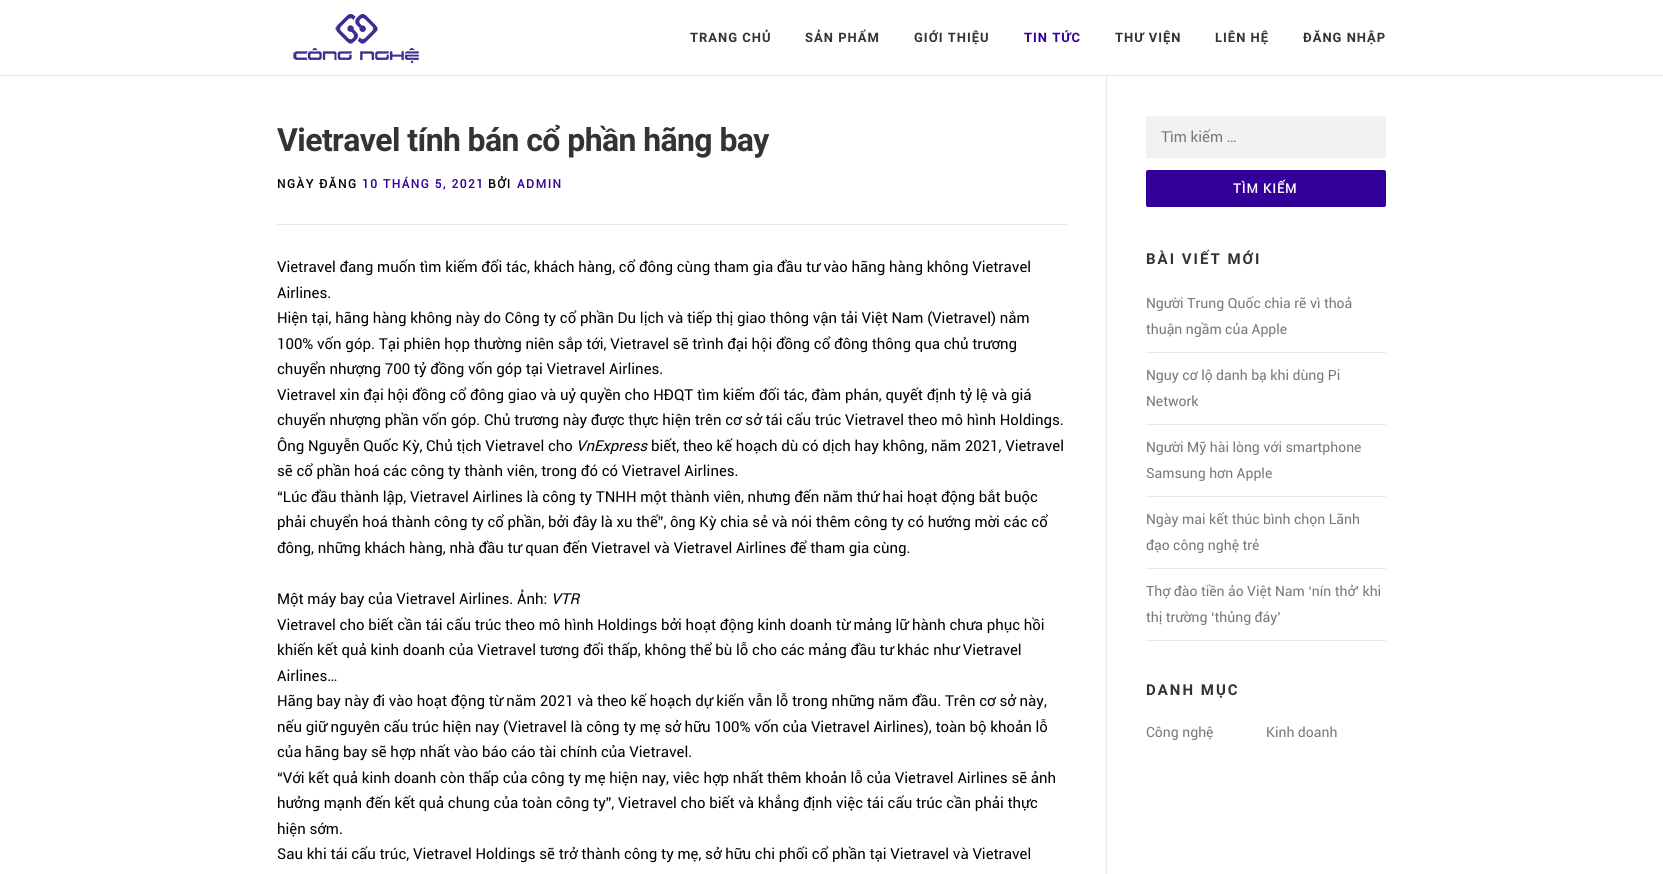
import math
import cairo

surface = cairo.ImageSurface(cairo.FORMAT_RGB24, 1663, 874)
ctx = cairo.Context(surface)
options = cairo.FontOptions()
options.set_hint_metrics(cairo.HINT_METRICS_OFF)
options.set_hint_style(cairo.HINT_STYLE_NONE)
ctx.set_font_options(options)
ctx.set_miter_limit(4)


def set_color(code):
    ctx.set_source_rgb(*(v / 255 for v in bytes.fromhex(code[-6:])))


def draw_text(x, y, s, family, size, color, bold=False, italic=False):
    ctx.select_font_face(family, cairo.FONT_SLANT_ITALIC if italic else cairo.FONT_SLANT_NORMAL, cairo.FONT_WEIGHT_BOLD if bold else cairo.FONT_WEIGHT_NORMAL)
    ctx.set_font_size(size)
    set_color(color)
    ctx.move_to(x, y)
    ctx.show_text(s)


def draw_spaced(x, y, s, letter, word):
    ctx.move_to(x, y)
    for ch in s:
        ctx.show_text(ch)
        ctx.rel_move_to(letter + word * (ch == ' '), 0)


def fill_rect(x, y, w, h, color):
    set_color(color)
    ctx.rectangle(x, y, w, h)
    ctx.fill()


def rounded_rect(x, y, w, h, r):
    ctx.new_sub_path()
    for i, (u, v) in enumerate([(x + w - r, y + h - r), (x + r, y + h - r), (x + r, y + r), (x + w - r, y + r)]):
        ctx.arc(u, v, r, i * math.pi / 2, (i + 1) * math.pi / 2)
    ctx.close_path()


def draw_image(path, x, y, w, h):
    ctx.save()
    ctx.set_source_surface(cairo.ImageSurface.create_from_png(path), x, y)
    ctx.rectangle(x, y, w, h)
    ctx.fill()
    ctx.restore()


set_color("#ffffff")
ctx.paint()
draw_image("assets/img1.png", 293, 14, 126, 49)
ctx.select_font_face("Roboto", cairo.FONT_SLANT_NORMAL, cairo.FONT_WEIGHT_BOLD)
ctx.set_font_size(13)
set_color("#333333")
draw_spaced(690, 42, "TRANG CHỦ", 1, 0)
draw_spaced(805, 42, "SẢN PHẨM", 1, 0)
draw_spaced(914, 42, "GIỚI THIỆU", 1, 0)
set_color("#330099")
draw_spaced(1024, 42, "TIN TỨC", 1, 0)
set_color("#333333")
draw_spaced(1115, 42, "THƯ VIỆN", 1, 0)
draw_spaced(1215, 42, "LIÊN HỆ", 1, 0)
draw_spaced(1303, 42, "ĐĂNG NHẬP", 1, 0)
fill_rect(0, 75, 1663, 1, "#e9e9e9")
fill_rect(1106, 76, 1, 798, "#e9e9e9")
ctx.set_font_size(32)
set_color("#333333")
draw_spaced(277, 151, "Vietravel tính bán cổ phần hãng bay", -0.6, 0)
fill_rect(277, 224, 790, 1, "#e9e9e9")
ctx.select_font_face("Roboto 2", cairo.FONT_SLANT_NORMAL, cairo.FONT_WEIGHT_BOLD)
ctx.set_font_size(12)
set_color("#000000")
draw_spaced(277, 188, "NGÀY ĐĂNG", 1.5, 0)
set_color("#330099")
draw_spaced(362, 188, "10 THÁNG 5, 2021", 1.5, 0)
set_color("#000000")
draw_spaced(488, 188, "BỞI", 1.5, 0)
set_color("#330099")
draw_spaced(517, 188, "ADMIN", 1.5, 0)
draw_text(277, 272, "Vietravel đang muốn tìm kiếm đối tác, khách hàng, cổ đông cùng tham gia đầu tư vào hãng hàng không Vietravel", "Roboto", 15, "#000000")
draw_text(277, 298, "Airlines.", "Roboto", 15, "#000000")
draw_text(277, 323, "Hiện tại, hãng hàng không này do Công ty cổ phần Du lịch và tiếp thị giao thông vận tải Việt Nam (Vietravel) nắm", "Roboto", 15, "#000000")
draw_text(277, 349, "100% vốn góp. Tại phiên họp thường niên sắp tới, Vietravel sẽ trình đại hội đồng cổ đông thông qua chủ trương", "Roboto", 15, "#000000")
draw_text(277, 374, "chuyển nhượng 700 tỷ đồng vốn góp tại Vietravel Airlines.", "Roboto", 15, "#000000")
draw_text(277, 400, "Vietravel xin đại hội đồng cổ đông giao và uỷ quyền cho HĐQT tìm kiếm đối tác, đàm phán, quyết định tỷ lệ và giá", "Roboto", 15, "#000000")
draw_text(277, 425, "chuyển nhượng phần vốn góp. Chủ trương này được thực hiện trên cơ sở tái cấu trúc Vietravel theo mô hình Holdings.", "Roboto", 15, "#000000")
draw_text(277, 451, "Ông Nguyễn Quốc Kỳ, Chủ tịch Vietravel cho", "Roboto", 15, "#000000")
draw_text(576, 451, "VnExpress", "Roboto", 15, "#000000", italic=True)
draw_text(651, 451, "biết, theo kế hoạch dù có dịch hay không, năm 2021, Vietravel", "Roboto", 15, "#000000")
draw_text(277, 476, "sẽ cổ phần hoá các công ty thành viên, trong đó có Vietravel Airlines.", "Roboto", 15, "#000000")
draw_text(277, 502, "“Lúc đầu thành lập, Vietravel Airlines là công ty TNHH một thành viên, nhưng đến năm thứ hai hoạt động bắt buộc", "Roboto", 15, "#000000")
draw_text(277, 527, "phải chuyển hoá thành công ty cổ phần, bởi đây là xu thế”, ông Kỳ chia sẻ và nói thêm công ty có hướng mời các cổ", "Roboto", 15, "#000000")
draw_text(277, 553, "đông, những khách hàng, nhà đầu tư quan đến Vietravel và Vietravel Airlines để tham gia cùng.", "Roboto", 15, "#000000")
draw_text(277, 604, "Một máy bay của Vietravel Airlines. Ảnh:", "Roboto", 15, "#000000")
draw_text(551, 604, "VTR", "Roboto", 15, "#000000", italic=True)
draw_text(277, 630, "Vietravel cho biết cần tái cấu trúc theo mô hình Holdings bởi hoạt động kinh doanh từ mảng lữ hành chưa phục hồi", "Roboto", 15, "#000000")
draw_text(277, 655, "khiến kết quả kinh doanh của Vietravel tương đối thấp, không thể bù lỗ cho các mảng đầu tư khác như Vietravel", "Roboto", 15, "#000000")
draw_text(277, 681, "Airlines…", "Roboto", 15, "#000000")
draw_text(277, 706, "Hãng bay này đi vào hoạt động từ năm 2021 và theo kế hoạch dự kiến vẫn lỗ trong những năm đầu. Trên cơ sở này,", "Roboto", 15, "#000000")
draw_text(277, 732, "nếu giữ nguyên cấu trúc hiện nay (Vietravel là công ty mẹ sở hữu 100% vốn của Vietravel Airlines), toàn bộ khoản lỗ", "Roboto", 15, "#000000")
draw_text(277, 757, "của hãng bay sẽ hợp nhất vào báo cáo tài chính của Vietravel.", "Roboto", 15, "#000000")
draw_text(277, 783, "“Với kết quả kinh doanh còn thấp của công ty mẹ hiện nay, viêc hợp nhất thêm khoản lỗ của Vietravel Airlines sẽ ảnh", "Roboto", 15, "#000000")
draw_text(277, 808, "hưởng mạnh đến kết quả chung của toàn công ty”, Vietravel cho biết và khẳng định việc tái cấu trúc cần phải thực", "Roboto", 15, "#000000")
draw_text(277, 834, "hiện sớm.", "Roboto", 15, "#000000")
draw_text(277, 859, "Sau khi tái cấu trúc, Vietravel Holdings sẽ trở thành công ty mẹ, sở hữu chi phối cổ phần tại Vietravel và Vietravel", "Roboto", 15, "#000000")
fill_rect(1146, 116, 240, 42, "#f2f2f2")
draw_text(1161, 142, "Tìm kiếm …", "Roboto", 15, "#777777")
set_color("#330099")
rounded_rect(1146, 170, 240, 37, 2)
ctx.fill()
ctx.set_source_rgba(0, 0, 0, 0.1)
ctx.new_path()
ctx.move_to(1146, 204)
ctx.line_to(1146, 206)
ctx.line_to(1148, 207)
ctx.line_to(1384, 207)
ctx.curve_to(1386, 207, 1386, 205, 1386, 204)
ctx.curve_to(1386, 205, 1385, 206, 1384, 206)
ctx.line_to(1148, 206)
ctx.curve_to(1147, 206, 1146, 205, 1146, 204)
ctx.close_path()
ctx.fill()
ctx.select_font_face("Roboto 2", cairo.FONT_SLANT_NORMAL, cairo.FONT_WEIGHT_BOLD)
ctx.set_font_size(13)
set_color("#ffffff")
draw_spaced(1233, 193, "TÌM KIẾM", 1, 0)
ctx.select_font_face("Roboto", cairo.FONT_SLANT_NORMAL, cairo.FONT_WEIGHT_BOLD)
ctx.set_font_size(15)
set_color("#333333")
draw_spaced(1146, 264, "BÀI VIẾT MỚI", 2, 0)
fill_rect(1146, 352, 240, 1, "#e9e9e9")
draw_text(1146, 308, "Người Trung Quốc chia rẽ vì thoả", "Roboto", 14, "#777777")
draw_text(1146, 334, "thuận ngầm của Apple", "Roboto", 14, "#777777")
fill_rect(1146, 424, 240, 1, "#e9e9e9")
draw_text(1146, 380, "Nguy cơ lộ danh bạ khi dùng Pi", "Roboto", 14, "#777777")
draw_text(1146, 406, "Network", "Roboto", 14, "#777777")
fill_rect(1146, 496, 240, 1, "#e9e9e9")
draw_text(1146, 452, "Người Mỹ hài lòng với smartphone", "Roboto", 14, "#777777")
draw_text(1146, 478, "Samsung hơn Apple", "Roboto", 14, "#777777")
fill_rect(1146, 568, 240, 1, "#e9e9e9")
draw_text(1146, 524, "Ngày mai kết thúc bình chọn Lãnh", "Roboto", 14, "#777777")
draw_text(1146, 550, "đạo công nghệ trẻ", "Roboto", 14, "#777777")
fill_rect(1146, 640, 240, 1, "#e9e9e9")
draw_text(1146, 596, "Thợ đào tiền ảo Việt Nam ‘nín thở’ khi", "Roboto", 14, "#777777")
draw_text(1146, 622, "thị trường ‘thủng đáy’", "Roboto", 14, "#777777")
ctx.select_font_face("Roboto", cairo.FONT_SLANT_NORMAL, cairo.FONT_WEIGHT_BOLD)
ctx.set_font_size(15)
set_color("#333333")
draw_spaced(1146, 695, "DANH MỤC", 2, 0)
draw_text(1146, 737, "Công nghệ", "Roboto", 14, "#777777")
draw_text(1266, 737, "Kinh doanh", "Roboto", 14, "#777777")
surface.write_to_png("output.png")
